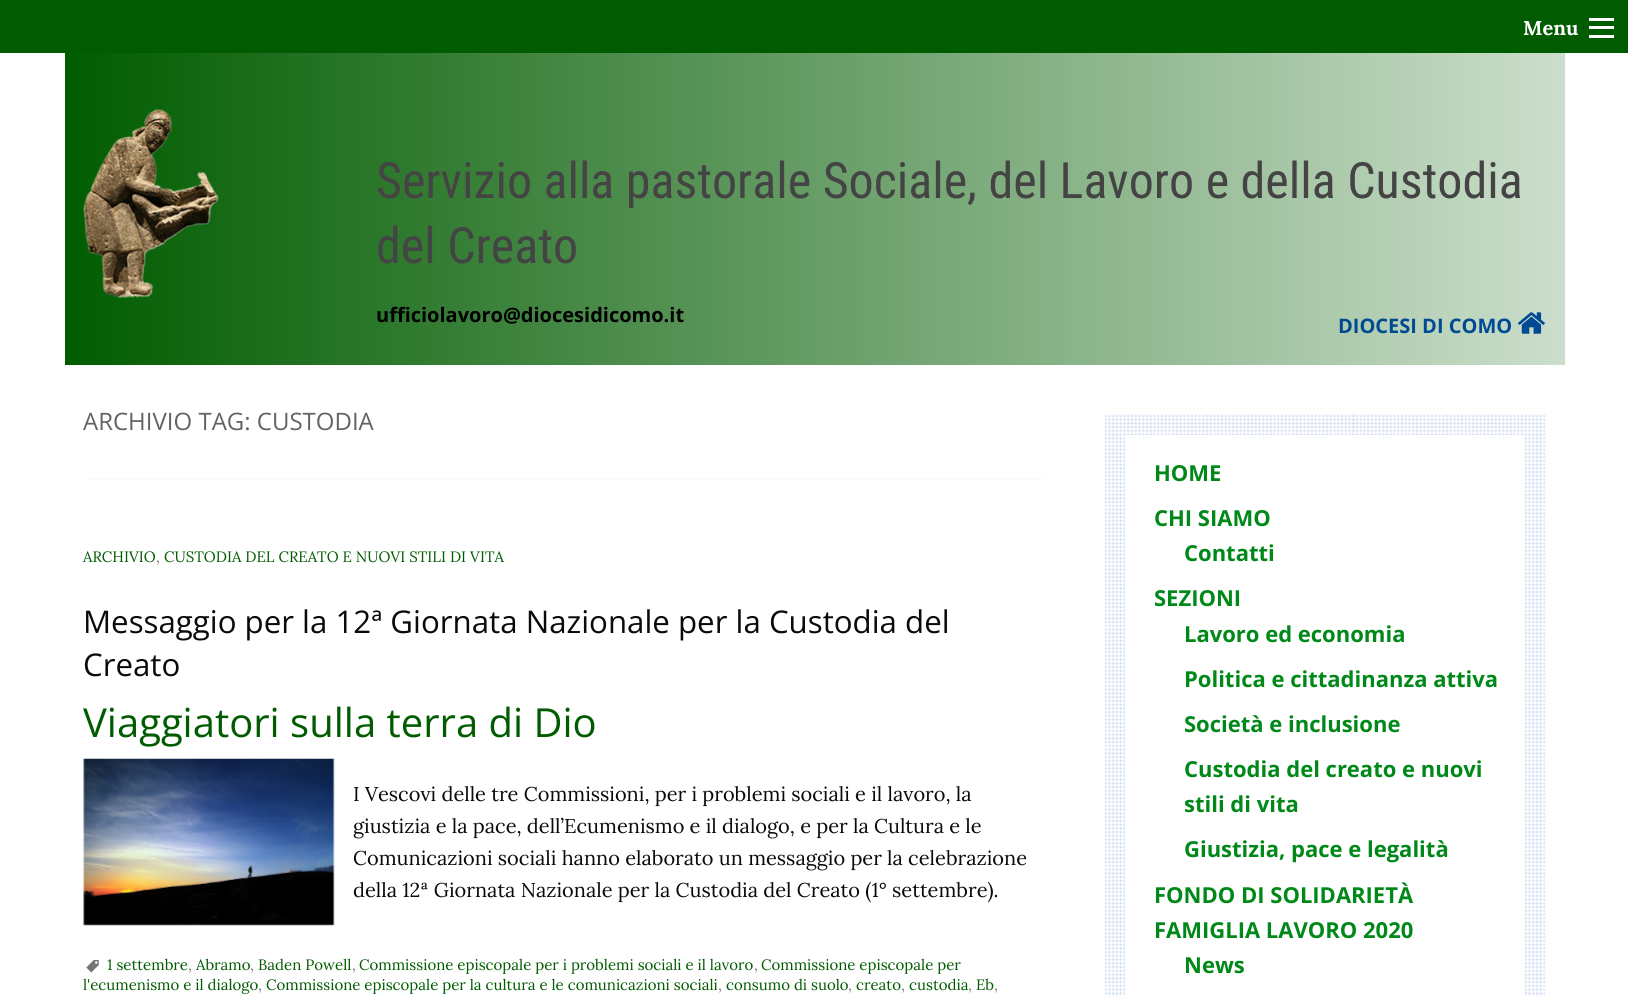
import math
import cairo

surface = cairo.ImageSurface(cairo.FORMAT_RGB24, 1628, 996)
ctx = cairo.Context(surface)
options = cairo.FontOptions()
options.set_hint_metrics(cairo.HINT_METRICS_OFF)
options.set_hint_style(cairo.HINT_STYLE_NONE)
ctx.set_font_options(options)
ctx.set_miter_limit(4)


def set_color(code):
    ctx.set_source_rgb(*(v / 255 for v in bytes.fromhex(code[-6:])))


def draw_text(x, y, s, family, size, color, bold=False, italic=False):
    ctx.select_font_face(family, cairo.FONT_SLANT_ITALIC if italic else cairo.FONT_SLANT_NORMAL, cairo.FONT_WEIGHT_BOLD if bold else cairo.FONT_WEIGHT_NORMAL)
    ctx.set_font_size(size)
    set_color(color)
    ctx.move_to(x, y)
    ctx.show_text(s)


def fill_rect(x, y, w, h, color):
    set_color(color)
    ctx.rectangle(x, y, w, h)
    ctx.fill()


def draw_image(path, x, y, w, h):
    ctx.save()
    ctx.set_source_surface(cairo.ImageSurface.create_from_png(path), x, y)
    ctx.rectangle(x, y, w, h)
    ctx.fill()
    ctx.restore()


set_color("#ffffff")
ctx.paint()
fill_rect(0, 0, 1628, 53, "#015b00")
draw_text(1523, 35, "Menu", "Lora", 20, "#ffffff", bold=True)
fill_rect(1589, 35, 25, 3, "#ffffff")
fill_rect(1589, 26, 25, 3, "#ffffff")
fill_rect(1589, 18, 25, 3, "#ffffff")
gradient = cairo.LinearGradient(65, 209, 1565, 209)
gradient.add_color_stop_rgba(0, 0.004, 0.361, 0, 1)
gradient.add_color_stop_rgba(1, 0.8, 0.871, 0.8, 1)
ctx.set_source(gradient)
ctx.rectangle(65, 53, 1500, 312)
ctx.fill()
draw_image("assets/img1.png", 83, 109, 136, 189)
draw_text(376, 198, "Servizio alla pastorale Sociale, del Lavoro e della Custodia", "Roboto Condensed", 50, "#444444")
draw_text(376, 263, "del Creato", "Roboto Condensed", 50, "#444444")
draw_text(376, 322, "ufficiolavoro@diocesidicomo.it", "Open Sans", 20, "#000000", bold=True)
draw_text(1338, 333, "DIOCESI DI COMO", "Open Sans", 20, "#004a94", bold=True)
draw_image("assets/img2.png", 1518, 312, 27, 22)
fill_rect(84, 479, 962, 1, "#fafafa")
draw_text(83, 430, "ARCHIVIO TAG: CUSTODIA", "Open Sans", 24, "#636363")
draw_text(83, 562, "ARCHIVIO", "Lora", 15, "#015b00")
draw_text(156, 562, ",", "Lora", 15, "#757575")
draw_text(164, 562, "CUSTODIA DEL CREATO E NUOVI STILI DI VITA", "Lora", 15, "#015b00")
draw_text(83, 633, "Messaggio per la 12ª Giornata Nazionale per la Custodia del", "Open Sans", 31.25, "#0a0a0a")
draw_text(83, 676, "Creato", "Open Sans", 31.25, "#0a0a0a")
draw_text(83, 737, "Viaggiatori sulla terra di Dio", "Open Sans", 40, "#015b00")
draw_image("assets/img3.png", 83, 758, 252, 168)
draw_text(353, 801, "I Vescovi delle tre Commissioni, per i problemi sociali e il lavoro, la", "Lora", 20, "#0a0a0a")
draw_text(353, 833, "giustizia e la pace, dell’Ecumenismo e il dialogo, e per la Cultura e le", "Lora", 20, "#0a0a0a")
draw_text(353, 865, "Comunicazioni sociali hanno elaborato un messaggio per la celebrazione", "Lora", 20, "#0a0a0a")
draw_text(353, 897, "della 12ª Giornata Nazionale per la Custodia del Creato (1° settembre).", "Lora", 20, "#0a0a0a")
draw_image("assets/img4.png", 86, 960, 13, 13)
draw_text(107, 970, "1 settembre", "Lora", 15, "#015b00")
draw_text(188, 970, ",", "Lora", 15, "#757575")
draw_text(196, 970, "Abramo", "Lora", 15, "#015b00")
draw_text(250, 970, ",", "Lora", 15, "#757575")
draw_text(258, 970, "Baden Powell", "Lora", 15, "#015b00")
draw_text(352, 970, ",", "Lora", 15, "#757575")
draw_text(359, 970, "Commissione episcopale per i problemi sociali e il lavoro", "Lora", 15, "#015b00")
draw_text(754, 970, ",", "Lora", 15, "#757575")
draw_text(761, 970, "Commissione episcopale per", "Lora", 15, "#015b00")
draw_text(83, 990, "l'ecumenismo e il dialogo", "Lora", 15, "#015b00")
draw_text(258, 990, ",", "Lora", 15, "#757575")
draw_text(266, 990, "Commissione episcopale per la cultura e le comunicazioni sociali", "Lora", 15, "#015b00")
draw_text(718, 990, ",", "Lora", 15, "#757575")
draw_text(726, 990, "consumo di suolo", "Lora", 15, "#015b00")
draw_text(848, 990, ",", "Lora", 15, "#757575")
draw_text(856, 990, "creato", "Lora", 15, "#015b00")
draw_text(901, 990, ",", "Lora", 15, "#757575")
draw_text(909, 990, "custodia", "Lora", 15, "#015b00")
draw_text(968, 990, ",", "Lora", 15, "#757575")
draw_text(976, 990, "Eb", "Lora", 15, "#015b00")
draw_text(994, 990, ",", "Lora", 15, "#757575")
draw_image("assets/img5.png", 1104, 414, 442, 582)
fill_rect(1125, 435, 400, 561, "#ffffff")
draw_text(1154, 481, "HOME", "Open Sans", 22, "#008919", bold=True)
draw_text(1154, 526, "CHI SIAMO", "Open Sans", 22, "#008919", bold=True)
draw_text(1184, 561, "Contatti", "Open Sans", 22, "#008919", bold=True)
draw_text(1154, 606, "SEZIONI", "Open Sans", 22, "#008919", bold=True)
draw_text(1184, 642, "Lavoro ed economia", "Open Sans", 22, "#008919", bold=True)
draw_text(1184, 687, "Politica e cittadinanza attiva", "Open Sans", 22, "#008919", bold=True)
draw_text(1184, 732, "Società e inclusione", "Open Sans", 22, "#008919", bold=True)
draw_text(1184, 777, "Custodia del creato e nuovi", "Open Sans", 22, "#008919", bold=True)
draw_text(1184, 812, "stili di vita", "Open Sans", 22, "#008919", bold=True)
draw_text(1184, 857, "Giustizia, pace e legalità", "Open Sans", 22, "#008919", bold=True)
draw_text(1154, 903, "FONDO DI SOLIDARIETÀ", "Open Sans", 22, "#008919", bold=True)
draw_text(1154, 938, "FAMIGLIA LAVORO 2020", "Open Sans", 22, "#008919", bold=True)
draw_text(1184, 973, "News", "Open Sans", 22, "#008919", bold=True)
surface.write_to_png("output.png")
